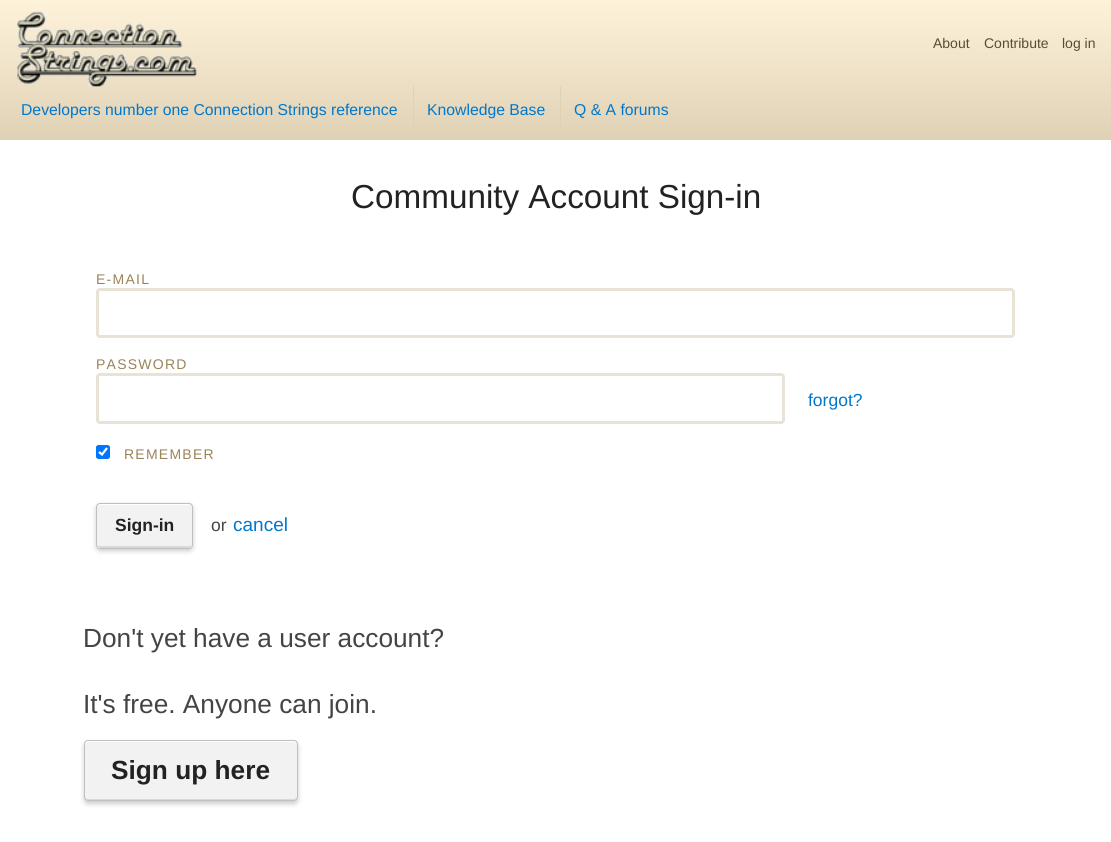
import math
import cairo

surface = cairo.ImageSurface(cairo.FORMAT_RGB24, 1111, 842)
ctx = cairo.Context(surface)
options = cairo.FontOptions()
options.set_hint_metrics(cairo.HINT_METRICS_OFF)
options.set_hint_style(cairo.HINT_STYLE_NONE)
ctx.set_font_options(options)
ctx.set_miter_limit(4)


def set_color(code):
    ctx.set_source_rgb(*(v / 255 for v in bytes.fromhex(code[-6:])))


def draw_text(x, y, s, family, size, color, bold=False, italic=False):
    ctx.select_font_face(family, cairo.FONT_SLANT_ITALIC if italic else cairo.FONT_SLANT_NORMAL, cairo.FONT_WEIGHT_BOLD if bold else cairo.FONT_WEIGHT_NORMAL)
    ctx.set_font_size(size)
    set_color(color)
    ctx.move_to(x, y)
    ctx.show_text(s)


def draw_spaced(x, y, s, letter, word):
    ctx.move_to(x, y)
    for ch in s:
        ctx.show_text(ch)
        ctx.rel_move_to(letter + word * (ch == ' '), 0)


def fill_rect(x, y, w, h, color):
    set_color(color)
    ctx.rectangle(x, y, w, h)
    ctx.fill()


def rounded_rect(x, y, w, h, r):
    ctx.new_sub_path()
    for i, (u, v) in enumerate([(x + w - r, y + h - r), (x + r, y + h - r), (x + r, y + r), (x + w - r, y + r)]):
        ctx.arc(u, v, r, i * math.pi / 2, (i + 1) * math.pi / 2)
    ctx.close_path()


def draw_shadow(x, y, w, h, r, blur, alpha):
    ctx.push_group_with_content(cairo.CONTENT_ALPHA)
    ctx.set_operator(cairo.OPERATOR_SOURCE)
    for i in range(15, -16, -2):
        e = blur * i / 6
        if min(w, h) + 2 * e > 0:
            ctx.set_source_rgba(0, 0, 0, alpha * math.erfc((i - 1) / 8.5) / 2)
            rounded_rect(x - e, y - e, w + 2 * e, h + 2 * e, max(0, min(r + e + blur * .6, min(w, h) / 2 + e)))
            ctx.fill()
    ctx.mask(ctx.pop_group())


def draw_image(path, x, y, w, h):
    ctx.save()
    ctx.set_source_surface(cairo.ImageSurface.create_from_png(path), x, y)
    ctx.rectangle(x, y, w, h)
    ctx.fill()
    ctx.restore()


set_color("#ffffff")
ctx.paint()
gradient = cairo.LinearGradient(556, 0, 556, 140)
gradient.add_color_stop_rgba(0, 0.996, 0.953, 0.855, 1)
gradient.add_color_stop_rgba(1, 0.875, 0.82, 0.71, 1)
ctx.set_source(gradient)
ctx.rectangle(0, 0, 1111, 140)
ctx.fill()
draw_image("assets/img1.png", 17, 11, 180, 76)
draw_text(933, 48, "About", "Liberation Sans", 14, "#5a4c33")
draw_text(984, 48, "Contribute", "Liberation Sans", 14, "#5a4c33")
draw_text(1062, 48, "log in", "Liberation Sans", 14, "#5a4c33")
fill_rect(413, 86, 1, 45, "#dfd1b5")
draw_text(21, 115, "Developers number one Connection Strings reference", "Liberation Sans", 15.75, "#0077cc")
fill_rect(560, 86, 1, 45, "#dfd1b5")
draw_text(427, 115, "Knowledge Base", "Liberation Sans", 15.75, "#0077cc")
draw_text(574, 115, "Q & A forums", "Liberation Sans", 15.75, "#0077cc")
draw_text(351, 208, "Community Account Sign-in", "Liberation Sans", 33.25, "#222222")
ctx.set_font_size(14)
set_color("#9a8359")
draw_spaced(96, 284, "E-MAIL", 1.25, 0)
rounded_rect(97.5, 289.5, 916, 47, 2.5)
set_color("#e8e2d7")
ctx.set_line_width(3)
ctx.stroke()
set_color("#9a8359")
draw_spaced(96, 369, "PASSWORD", 1.25, 0)
rounded_rect(97.5, 374.5, 686, 48, 2.5)
set_color("#e8e2d7")
ctx.stroke()
draw_text(808, 406, "forgot?", "Liberation Sans", 17.5, "#0077cc")
set_color("#0075ff")
rounded_rect(96, 445, 14, 14, 2.5)
ctx.fill()
ctx.new_path()
ctx.move_to(99, 452)
ctx.line_to(102, 454.5)
ctx.line_to(107, 448)
set_color("#ffffff")
ctx.set_line_width(2.2)
ctx.stroke()
ctx.set_font_size(14)
set_color("#9a8359")
draw_spaced(124, 459, "REMEMBER", 1.25, 0)
set_color("#000000")
draw_shadow(96, 505, 97, 46, 4, 2.5, 0.2)
set_color("#f2f2f2")
rounded_rect(96, 503, 97, 46, 4)
ctx.fill()
set_color("#d9d9d9")
ctx.new_path()
ctx.move_to(98, 544)
ctx.curve_to(98, 552, 110, 548, 115, 548)
ctx.line_to(174, 548)
ctx.curve_to(179, 548, 191, 552, 191, 544)
ctx.line_to(191, 545)
ctx.line_to(189, 546)
ctx.line_to(100, 546)
ctx.curve_to(99, 546, 98, 545, 98, 544)
ctx.close_path()
ctx.fill()
set_color("#ffffff")
ctx.new_path()
ctx.move_to(100, 505)
ctx.line_to(189, 505)
ctx.curve_to(190, 505, 191, 506, 191, 508)
ctx.curve_to(191, 500, 179, 504, 174, 504)
ctx.line_to(115, 504)
ctx.curve_to(110, 504, 98, 500, 98, 508)
ctx.curve_to(98, 506, 99, 505, 100, 505)
ctx.close_path()
ctx.fill()
rounded_rect(96.5, 503.5, 96, 45, 3.5)
set_color("#bfbfbf")
ctx.set_line_width(1)
ctx.stroke()
draw_text(115, 531, "Sign-in", "Liberation Sans", 17.5, "#222222", bold=True)
draw_text(211, 531, "or", "Liberation Sans", 17.5, "#444444")
draw_text(233, 531, "cancel", "Liberation Sans", 19, "#0077cc")
draw_text(83, 647, "Don't yet have a user account?", "Liberation Sans", 26.25, "#444444")
draw_text(83, 713, "It's free. Anyone can join.", "Liberation Sans", 26.25, "#444444")
set_color("#000000")
draw_shadow(84, 743, 214, 61, 4, 2.5, 0.2)
set_color("#f2f2f2")
rounded_rect(84, 740, 214, 61, 4)
ctx.fill()
set_color("#d9d9d9")
ctx.new_path()
ctx.move_to(85, 796)
ctx.line_to(85, 798)
ctx.curve_to(85, 799, 86, 800, 88, 800)
ctx.line_to(294, 800)
ctx.curve_to(295, 800, 296, 799, 296, 798)
ctx.line_to(296, 796)
ctx.curve_to(296, 798, 295, 799, 294, 799)
ctx.line_to(88, 799)
ctx.curve_to(86, 799, 85, 798, 85, 796)
ctx.close_path()
ctx.fill()
set_color("#ffffff")
ctx.new_path()
ctx.move_to(88, 742)
ctx.line_to(294, 742)
ctx.curve_to(295, 742, 296, 744, 296, 745)
ctx.line_to(296, 744)
ctx.curve_to(296, 742, 295, 741, 294, 741)
ctx.line_to(88, 741)
ctx.curve_to(86, 741, 85, 742, 85, 744)
ctx.line_to(85, 745)
ctx.curve_to(85, 744, 86, 742, 88, 742)
ctx.close_path()
ctx.fill()
rounded_rect(84.5, 740.5, 213, 60, 3.5)
set_color("#bfbfbf")
ctx.stroke()
draw_text(111, 779, "Sign up here", "Liberation Sans", 26.25, "#222222", bold=True)
surface.write_to_png("output.png")
